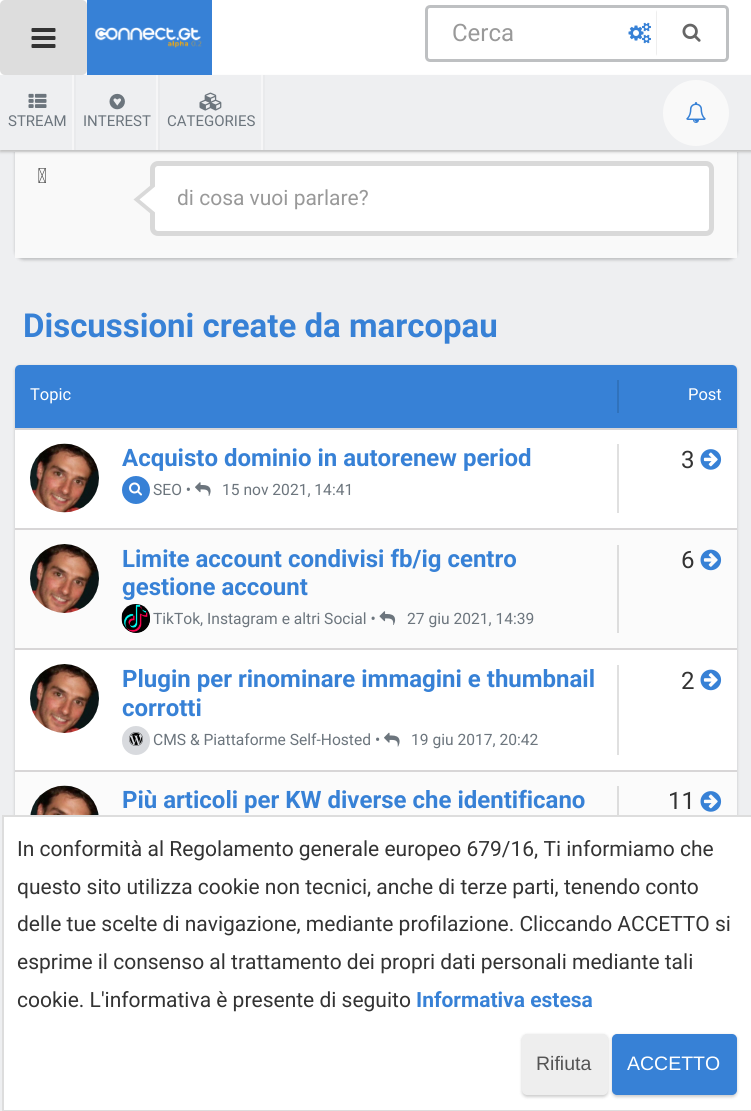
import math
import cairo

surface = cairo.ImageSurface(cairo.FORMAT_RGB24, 751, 1111)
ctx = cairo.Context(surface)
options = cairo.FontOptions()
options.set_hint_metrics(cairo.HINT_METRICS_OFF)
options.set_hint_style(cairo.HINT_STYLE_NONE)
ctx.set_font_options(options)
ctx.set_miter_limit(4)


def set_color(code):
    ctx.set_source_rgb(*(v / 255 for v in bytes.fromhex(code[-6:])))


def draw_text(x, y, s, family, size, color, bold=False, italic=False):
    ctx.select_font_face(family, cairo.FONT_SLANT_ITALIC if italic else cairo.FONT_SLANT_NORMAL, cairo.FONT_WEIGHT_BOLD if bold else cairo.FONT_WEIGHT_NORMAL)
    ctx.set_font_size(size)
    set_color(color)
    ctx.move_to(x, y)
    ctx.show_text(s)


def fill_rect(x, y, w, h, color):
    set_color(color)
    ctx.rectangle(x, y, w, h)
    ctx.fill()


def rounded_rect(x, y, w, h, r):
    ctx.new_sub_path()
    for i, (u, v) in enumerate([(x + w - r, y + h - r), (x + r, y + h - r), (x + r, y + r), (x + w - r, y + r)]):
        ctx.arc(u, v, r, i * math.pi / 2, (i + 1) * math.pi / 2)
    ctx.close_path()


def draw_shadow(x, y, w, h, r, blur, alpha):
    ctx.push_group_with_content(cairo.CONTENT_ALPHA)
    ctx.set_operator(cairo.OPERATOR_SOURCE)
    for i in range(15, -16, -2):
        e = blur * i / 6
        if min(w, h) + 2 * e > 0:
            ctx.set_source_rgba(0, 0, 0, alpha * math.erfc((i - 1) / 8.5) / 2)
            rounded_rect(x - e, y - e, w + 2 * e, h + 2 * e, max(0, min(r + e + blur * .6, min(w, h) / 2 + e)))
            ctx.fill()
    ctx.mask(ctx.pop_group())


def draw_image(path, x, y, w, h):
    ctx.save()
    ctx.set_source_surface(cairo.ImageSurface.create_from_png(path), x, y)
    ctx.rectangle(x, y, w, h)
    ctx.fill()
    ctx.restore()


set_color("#eeeff1")
ctx.paint()
fill_rect(0, 0, 751, 75, "#ffffff")
set_color("#000000")
draw_shadow(15, 96, 722, 164, 9, 1.5, 0.2)
fill_rect(0, 150, 751, 2, "#eeeeee")
fill_rect(15, 152, 722, 106, "#f9f9f9")
set_color("#000000")
draw_shadow(0, 77, 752, 75, 0, 1.5, 0.2)
set_color("#dddddd")
rounded_rect(0, 0, 87, 75, 5)
ctx.fill()
draw_image("assets/img1.png", 31, 28, 25, 20)
fill_rect(95, 8, 109, 59, "#3781d6")
draw_image("assets/img2.png", 95, 27, 107, 21)
ctx.rectangle(91, 4, 117, 67)
ctx.set_line_width(8)
ctx.stroke()
rounded_rect(426.5, 6.5, 301, 54, 3.5)
set_color("#bec0c2")
ctx.set_line_width(3)
ctx.stroke()
draw_text(452, 41, "Cerca", "Roboto", 24, "#999999")
draw_image("assets/img3.png", 628, 22, 23, 22)
set_color("#eeeeee")
ctx.new_path()
ctx.move_to(656, 56)
ctx.line_to(656, 10)
ctx.line_to(657, 12)
ctx.line_to(657, 54)
ctx.close_path()
ctx.fill()
draw_image("assets/img4.png", 682, 23, 19, 19)
fill_rect(0, 75, 751, 75, "#eeeff1")
fill_rect(72, 75, 2, 75, "#f6f6f7")
fill_rect(74, 75, 2, 75, "#e9eaec")
draw_image("assets/img5.png", 28, 93, 19, 15)
draw_text(8, 126, "STREAM", "Roboto", 15, "#6c757d")
fill_rect(156, 75, 2, 75, "#f6f6f7")
fill_rect(158, 75, 2, 75, "#e9eaec")
draw_image("assets/img6.png", 109, 93, 16, 17)
draw_text(83, 126, "INTEREST", "Roboto", 15, "#6c757d")
fill_rect(261, 75, 2, 75, "#f6f6f7")
fill_rect(263, 75, 2, 75, "#e9eaec")
draw_image("assets/img7.png", 199, 92, 23, 19)
draw_text(167, 126, "CATEGORIES", "Roboto", 15, "#6c757d")
set_color("#f9f9f9")
ctx.new_path()
ctx.arc(696, 113, 33, 0, 2 * math.pi)
ctx.fill()
draw_image("assets/img8.png", 686, 102, 20, 21)
draw_image("assets/img9.png", 38, 168, 8, 15)
set_color("#ffffff")
rounded_rect(152.5, 163.5, 559, 70, 5.5)
ctx.fill_preserve()
set_color("#d9d9d9")
ctx.set_line_width(5)
ctx.stroke()
ctx.new_path()
ctx.move_to(151.5, 184.5)
ctx.line_to(151.5, 214.5)
ctx.line_to(133.5, 199.5)
ctx.close_path()
ctx.fill()
set_color("#ffffff")
ctx.new_path()
ctx.move_to(157.5, 184.5)
ctx.line_to(157.5, 214.5)
ctx.line_to(139.5, 199.5)
ctx.close_path()
ctx.fill()
draw_text(177, 205, "di cosa vuoi parlare?", "Roboto", 21, "#999999")
draw_text(23, 337, "Discussioni create da marcopau", "Roboto", 33, "#3781d6", bold=True)
set_color("#000000")
draw_shadow(15, 366, 722, 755, 5, 1.5, 0.2)
set_color("#ffffff")
rounded_rect(15, 365, 722, 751, 5)
ctx.fill()
set_color("#3781d6")
ctx.new_path()
ctx.move_to(20, 365)
ctx.line_to(732, 365)
ctx.curve_to(735, 365, 737, 367, 737, 370)
ctx.line_to(737, 428)
ctx.line_to(15, 428)
ctx.line_to(15, 370)
ctx.curve_to(15, 367, 17, 365, 20, 365)
ctx.close_path()
ctx.fill()
draw_text(30, 400, "Topic", "Roboto", 16.5, "#ffffff")
fill_rect(617, 380, 2, 33, "#3072bc")
draw_text(688, 400, "Post", "Roboto", 16.5, "#ffffff")
fill_rect(15, 428, 722, 2, "#d8d6d7")
draw_image("assets/img10.png", 30, 443, 69, 70)
draw_text(122, 466, "Acquisto dominio in autorenew period", "Roboto", 24, "#3781d6", bold=True)
ctx.new_path()
ctx.arc(136, 490, 14, 0, 2 * math.pi)
ctx.fill()
draw_image("assets/img11.png", 129, 482, 13, 14)
draw_text(153, 495, "SEO •", "Roboto", 15.6, "#6c757d")
draw_image("assets/img12.png", 195, 482, 16, 14)
draw_text(222, 495, "15 nov 2021, 14:41", "Roboto", 15.6, "#6c757d")
fill_rect(617, 444, 2, 69, "#e0e0e0")
draw_text(681, 468, "3", "Roboto", 24, "#333333")
draw_image("assets/img13.png", 700, 449, 22, 21)
fill_rect(15, 530, 722, 118, "#fbfbfb")
fill_rect(15, 528, 722, 2, "#d8d6d7")
draw_image("assets/img14.png", 30, 544, 69, 69)
draw_text(122, 567, "Limite account condivisi fb/ig centro", "Roboto", 24, "#3781d6", bold=True)
draw_text(122, 595, "gestione account", "Roboto", 24, "#3781d6", bold=True)
set_color("#000000")
ctx.new_path()
ctx.arc(136, 619, 14, 0, 2 * math.pi)
ctx.fill()
draw_image("assets/img15.png", 121, 604, 29, 29)
draw_text(153, 624, "TikTok, Instagram e altri Social •", "Roboto", 15.6, "#6c757d")
draw_image("assets/img16.png", 379, 611, 17, 14)
draw_text(407, 624, "27 giu 2021, 14:39", "Roboto", 15.6, "#6c757d")
fill_rect(617, 545, 2, 88, "#dddddd")
draw_text(681, 568, "6", "Roboto", 24, "#333333")
draw_image("assets/img17.png", 700, 549, 22, 22)
fill_rect(15, 648, 722, 2, "#d8d6d7")
draw_image("assets/img18.png", 30, 664, 69, 69)
draw_text(122, 687, "Plugin per rinominare immagini e thumbnail", "Roboto", 24, "#3781d6", bold=True)
draw_text(122, 716, "corrotti", "Roboto", 24, "#3781d6", bold=True)
set_color("#d8dade")
rounded_rect(122, 726, 28, 29, 14)
ctx.fill()
draw_image("assets/img19.png", 129, 732, 14, 14)
draw_text(153, 745, "CMS & Piattaforme Self-Hosted •", "Roboto", 15.6, "#6c757d")
draw_image("assets/img20.png", 384, 732, 16, 15)
draw_text(411, 745, "19 giu 2017, 20:42", "Roboto", 15.6, "#6c757d")
fill_rect(617, 665, 2, 90, "#e0e0e0")
draw_text(681, 689, "2", "Roboto", 24, "#333333")
draw_image("assets/img21.png", 700, 669, 22, 22)
fill_rect(15, 772, 722, 43, "#fbfbfb")
fill_rect(15, 770, 722, 2, "#d8d6d7")
draw_image("assets/img22.png", 30, 785, 69, 30)
draw_text(122, 808, "Più articoli per KW diverse che identificano", "Roboto", 24, "#3781d6", bold=True)
fill_rect(617, 786, 2, 29, "#dddddd")
draw_text(668, 809, "11", "Roboto", 24, "#333333")
draw_image("assets/img23.png", 700, 791, 22, 21)
set_color("#ffffff")
ctx.rectangle(3, 816, 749, 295)
ctx.fill_preserve()
set_color("#dddddd")
ctx.set_line_width(2)
ctx.stroke()
draw_text(17, 856, "In conformità al Regolamento generale europeo 679/16, Ti informiamo che", "Roboto", 21, "#333333")
draw_text(17, 894, "questo sito utilizza cookie non tecnici, anche di terze parti, tenendo conto", "Roboto", 21, "#333333")
draw_text(17, 931, "delle tue scelte di navigazione, mediante profilazione. Cliccando ACCETTO si", "Roboto", 21, "#333333")
draw_text(17, 969, "esprime il consenso al trattamento dei propri dati personali mediante tali", "Roboto", 21, "#333333")
draw_text(17, 1007, "cookie. L'informativa è presente di seguito", "Roboto", 21, "#333333")
draw_text(416, 1007, "Informativa estesa", "Roboto", 21, "#3781d6", bold=True)
set_color("#000000")
draw_shadow(522, 1035, 86, 62, 5, 1.5, 0.2)
set_color("#eeeeee")
rounded_rect(523, 1035, 84, 59, 4)
ctx.fill_preserve()
ctx.stroke()
draw_text(536, 1070, "Rifiuta", "Liberation Sans", 19.5, "#555555")
set_color("#000000")
draw_shadow(612, 1035, 125, 62, 5, 1.5, 0.2)
set_color("#3781d6")
rounded_rect(613, 1035, 123, 59, 4)
ctx.fill_preserve()
ctx.stroke()
draw_text(627, 1070, "ACCETTO", "Liberation Sans", 19.5, "#ffffff")
surface.write_to_png("output.png")
